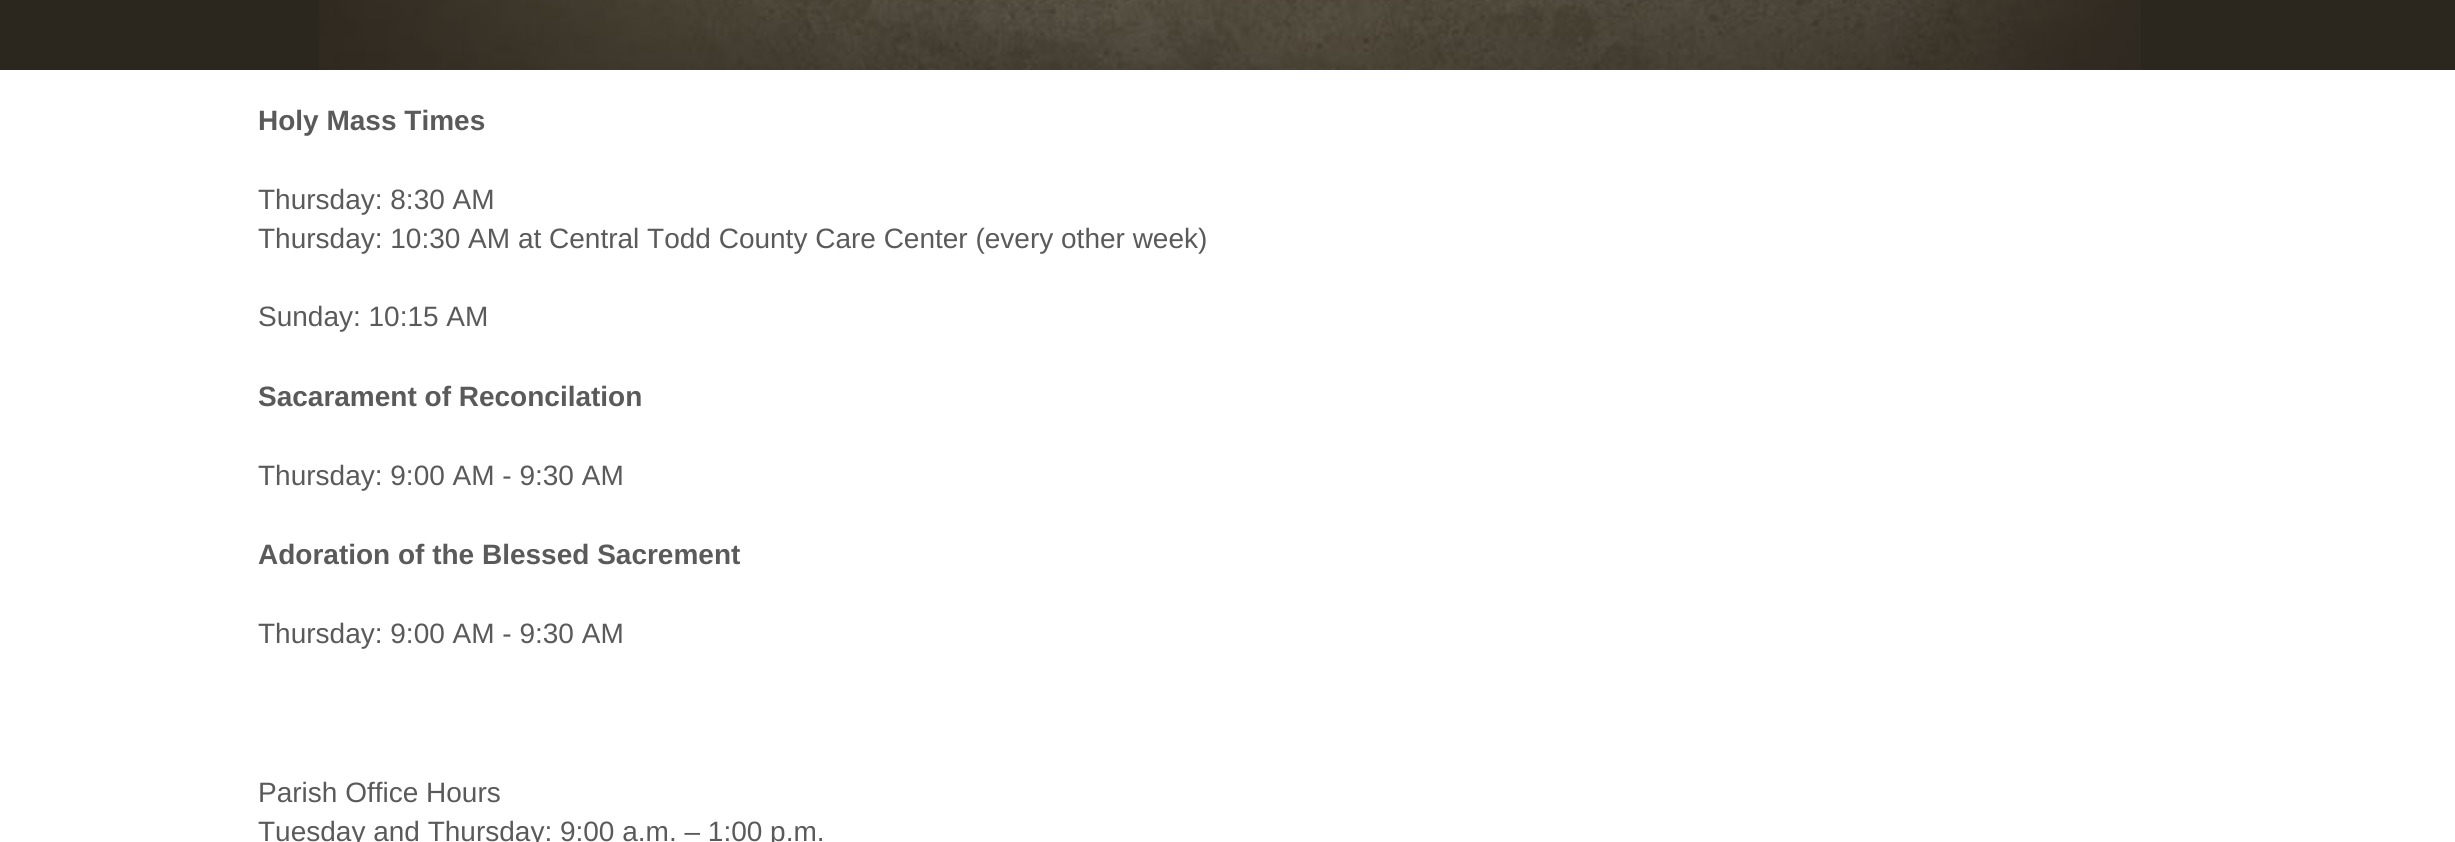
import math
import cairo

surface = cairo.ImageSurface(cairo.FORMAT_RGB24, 2455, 842)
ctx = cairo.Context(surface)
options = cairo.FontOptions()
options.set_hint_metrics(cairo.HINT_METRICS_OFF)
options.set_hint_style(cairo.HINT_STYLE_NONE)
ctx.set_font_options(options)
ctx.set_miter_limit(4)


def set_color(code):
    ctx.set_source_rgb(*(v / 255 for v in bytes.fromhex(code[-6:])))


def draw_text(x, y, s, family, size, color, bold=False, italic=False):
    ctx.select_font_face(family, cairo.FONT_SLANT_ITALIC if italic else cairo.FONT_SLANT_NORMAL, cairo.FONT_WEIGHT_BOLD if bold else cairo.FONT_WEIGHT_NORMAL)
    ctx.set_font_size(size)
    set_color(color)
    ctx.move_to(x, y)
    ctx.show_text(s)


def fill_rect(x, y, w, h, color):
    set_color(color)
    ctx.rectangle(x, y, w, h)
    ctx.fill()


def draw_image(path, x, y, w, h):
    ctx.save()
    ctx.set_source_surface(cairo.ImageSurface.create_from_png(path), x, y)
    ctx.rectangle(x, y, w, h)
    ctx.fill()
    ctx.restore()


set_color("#ffffff")
ctx.paint()
fill_rect(0, 0, 2455, 70, "#2c271e")
draw_image("assets/img1.png", 319, 0, 1822, 70)
draw_text(258, 130, "Holy Mass Times", "Liberation Sans", 28, "#5a5a5a", bold=True)
draw_text(258, 209, "Thursday: 8:30 AM", "Liberation Sans", 28, "#5a5a5a")
draw_text(258, 248, "Thursday: 10:30 AM at Central Todd County Care Center (every other week)", "Liberation Sans", 28, "#5a5a5a")
draw_text(258, 326, "Sunday: 10:15 AM", "Liberation Sans", 28, "#5a5a5a")
draw_text(258, 406, "Sacarament of Reconcilation", "Liberation Sans", 28, "#5a5a5a", bold=True)
draw_text(258, 485, "Thursday: 9:00 AM - 9:30 AM", "Liberation Sans", 28, "#5a5a5a")
draw_text(258, 564, "Adoration of the Blessed Sacrement", "Liberation Sans", 28, "#5a5a5a", bold=True)
draw_text(258, 643, "Thursday: 9:00 AM - 9:30 AM", "Liberation Sans", 28, "#5a5a5a")
draw_text(258, 802, "Parish Office Hours", "Liberation Sans", 28, "#5a5a5a")
draw_text(258, 841, "Tuesday and Thursday: 9:00 a.m. – 1:00 p.m.", "Liberation Sans", 28, "#5a5a5a")
surface.write_to_png("output.png")
